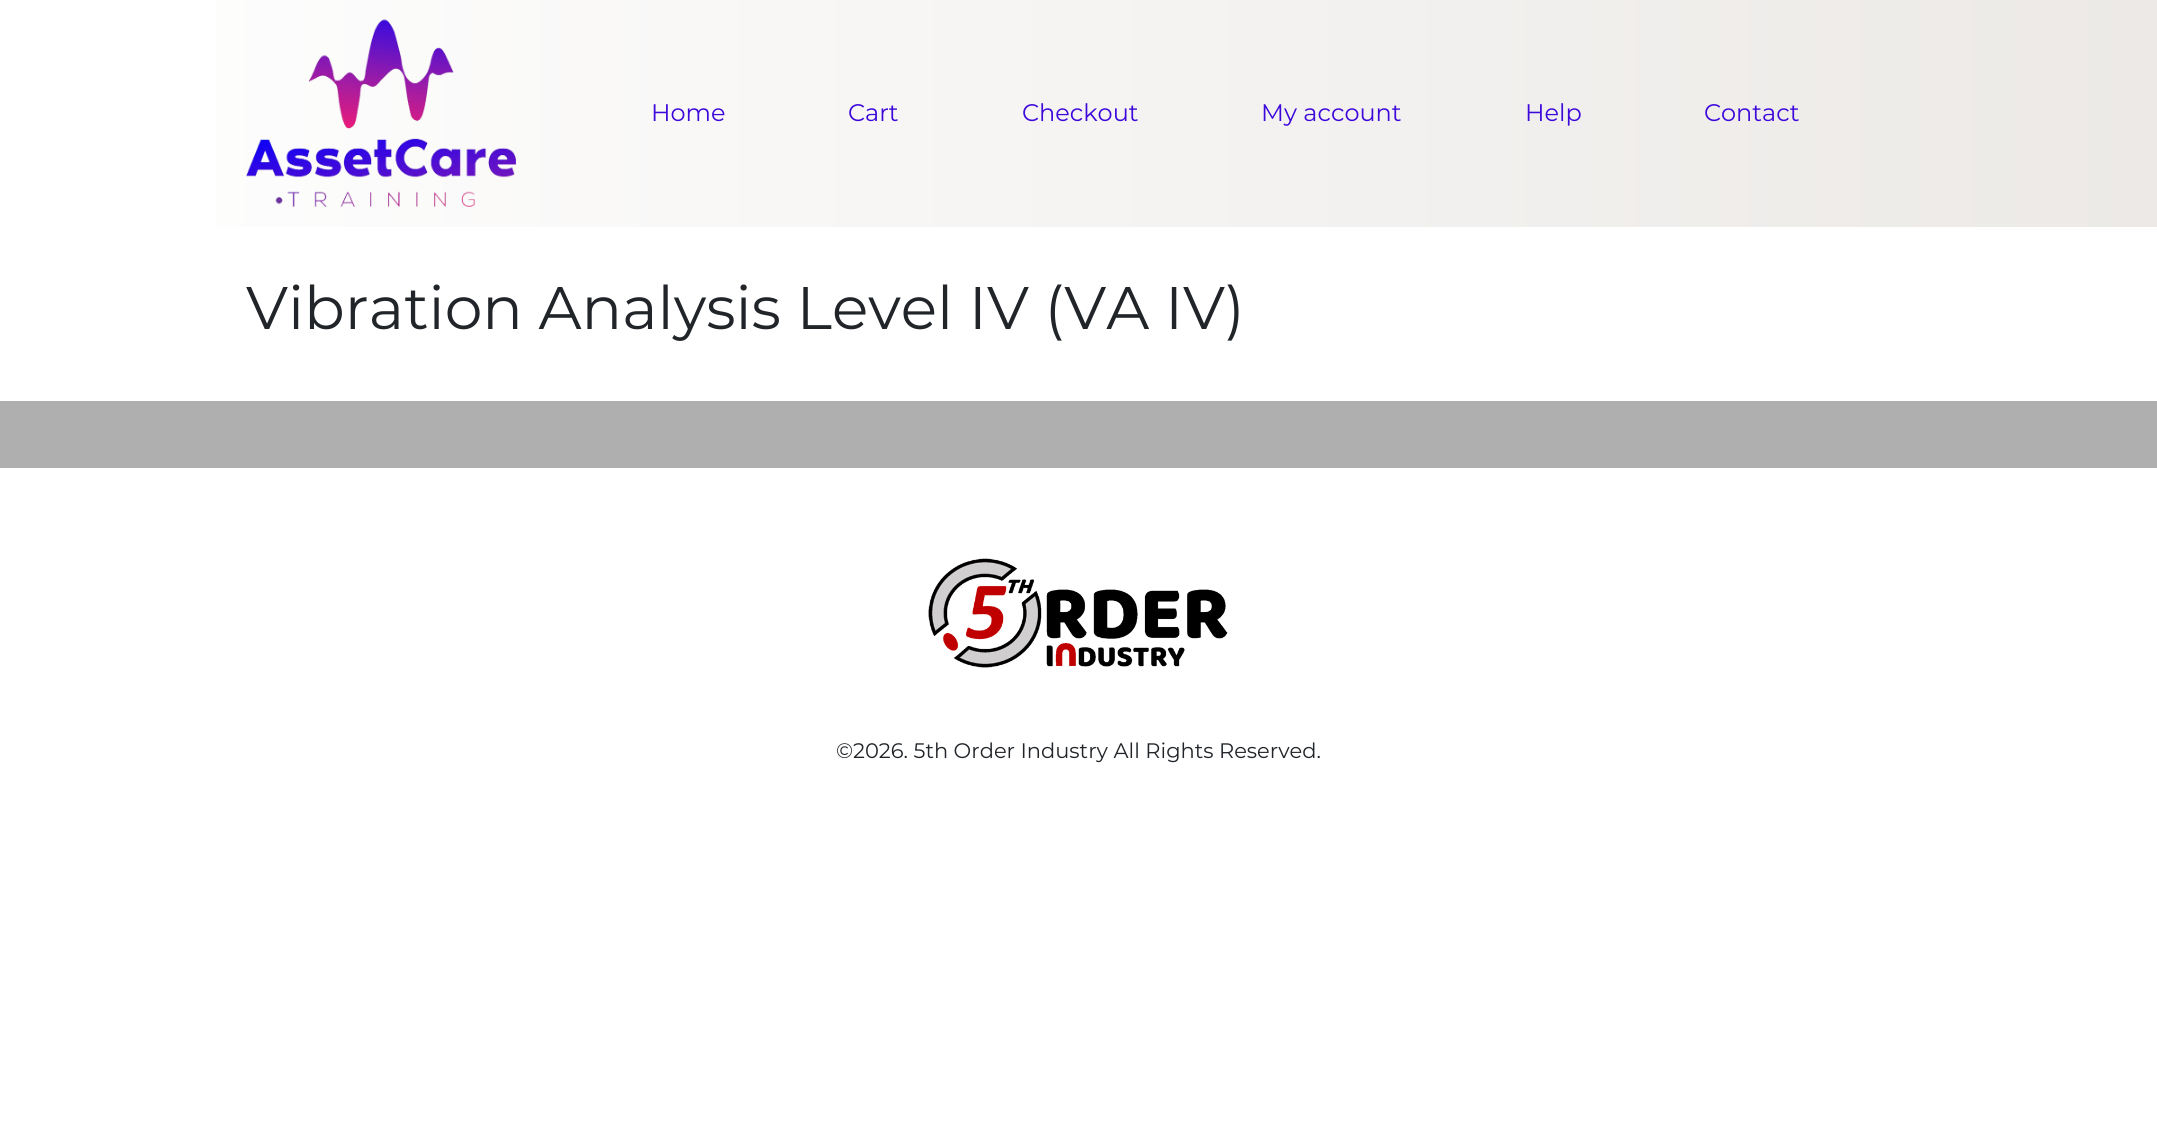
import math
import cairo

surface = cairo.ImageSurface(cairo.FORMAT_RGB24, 2157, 1121)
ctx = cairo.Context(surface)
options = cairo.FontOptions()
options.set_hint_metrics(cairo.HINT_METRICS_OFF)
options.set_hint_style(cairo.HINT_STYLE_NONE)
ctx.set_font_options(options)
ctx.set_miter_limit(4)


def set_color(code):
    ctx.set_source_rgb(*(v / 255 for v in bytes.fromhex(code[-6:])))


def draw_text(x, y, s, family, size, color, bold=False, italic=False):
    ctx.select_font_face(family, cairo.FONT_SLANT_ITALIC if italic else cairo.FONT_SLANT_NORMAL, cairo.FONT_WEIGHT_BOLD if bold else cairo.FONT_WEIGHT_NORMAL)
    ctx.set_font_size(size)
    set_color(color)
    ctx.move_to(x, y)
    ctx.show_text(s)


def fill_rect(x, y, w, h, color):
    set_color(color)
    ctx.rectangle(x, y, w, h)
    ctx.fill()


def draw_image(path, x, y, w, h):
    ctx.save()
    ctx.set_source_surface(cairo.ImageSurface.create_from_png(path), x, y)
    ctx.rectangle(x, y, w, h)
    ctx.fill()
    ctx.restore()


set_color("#ffffff")
ctx.paint()
gradient = cairo.LinearGradient(0, 113, 2157, 113)
gradient.add_color_stop_rgba(0, 1, 1, 1, 1)
gradient.add_color_stop_rgba(1, 0.925, 0.914, 0.902, 1)
ctx.set_source(gradient)
ctx.rectangle(216, 0, 1941, 227)
ctx.fill()
draw_image("assets/img1.png", 246, 19, 270, 188)
draw_text(651, 121, "Home", "Montserrat", 24, "#3d08da")
draw_text(848, 121, "Cart", "Montserrat", 24, "#3d08da")
draw_text(1022, 121, "Checkout", "Montserrat", 24, "#3d08da")
draw_text(1261, 121, "My account", "Montserrat", 24, "#3d08da")
draw_text(1525, 121, "Help", "Montserrat", 24, "#3d08da")
draw_text(1704, 121, "Contact", "Montserrat", 24, "#3d08da")
draw_text(246, 329, "Vibration Analysis Level IV (VA IV)", "Montserrat", 60, "#212529")
fill_rect(0, 401, 2157, 67, "#afafaf")
draw_image("assets/img2.png", 928, 558, 300, 110)
draw_text(836, 758, "©2026. 5th Order Industry All Rights Reserved.", "Montserrat", 21, "#212529")
surface.write_to_png("output.png")
